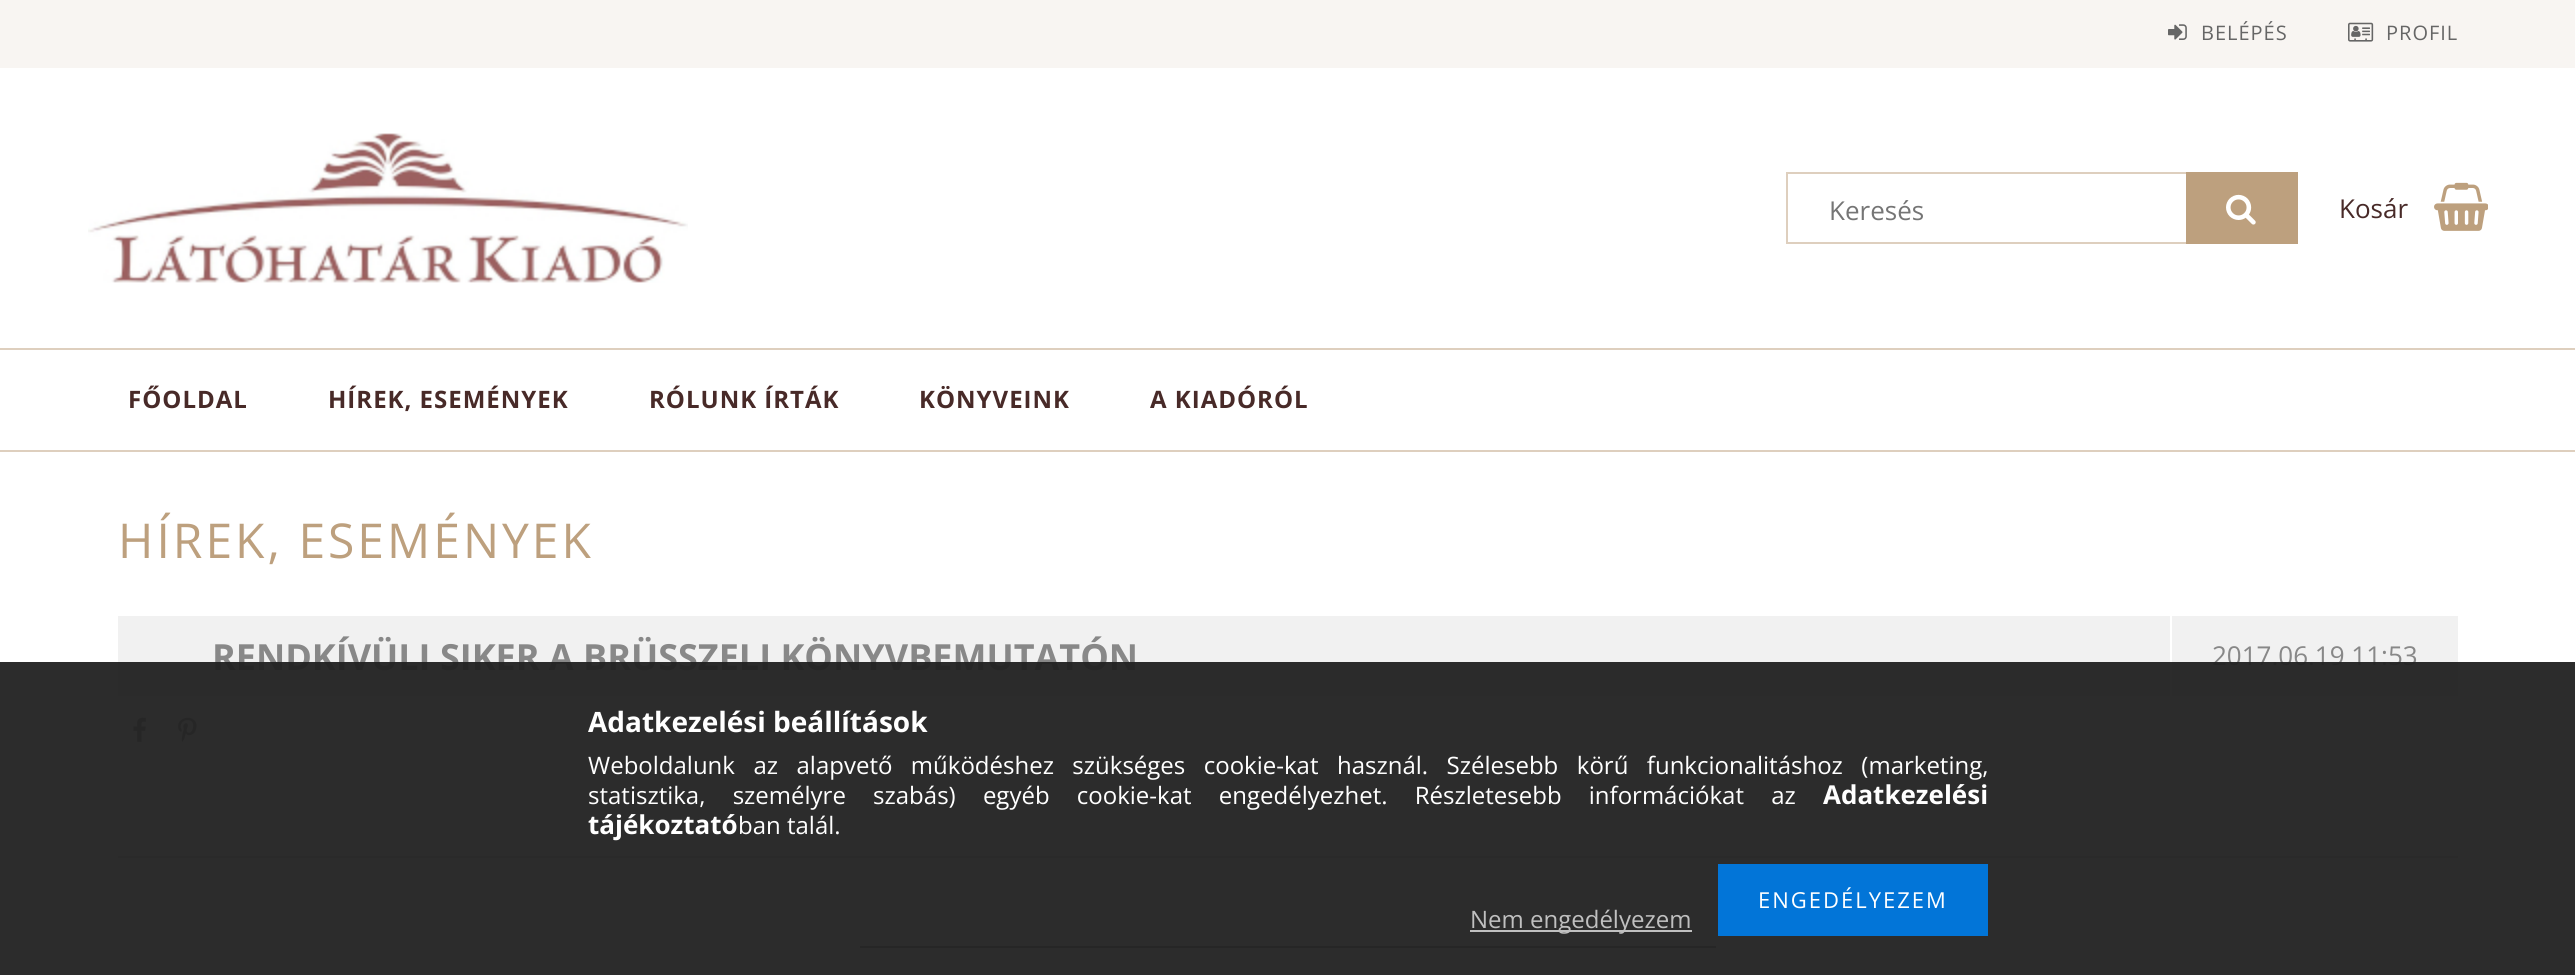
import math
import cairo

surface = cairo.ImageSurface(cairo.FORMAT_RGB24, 2575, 975)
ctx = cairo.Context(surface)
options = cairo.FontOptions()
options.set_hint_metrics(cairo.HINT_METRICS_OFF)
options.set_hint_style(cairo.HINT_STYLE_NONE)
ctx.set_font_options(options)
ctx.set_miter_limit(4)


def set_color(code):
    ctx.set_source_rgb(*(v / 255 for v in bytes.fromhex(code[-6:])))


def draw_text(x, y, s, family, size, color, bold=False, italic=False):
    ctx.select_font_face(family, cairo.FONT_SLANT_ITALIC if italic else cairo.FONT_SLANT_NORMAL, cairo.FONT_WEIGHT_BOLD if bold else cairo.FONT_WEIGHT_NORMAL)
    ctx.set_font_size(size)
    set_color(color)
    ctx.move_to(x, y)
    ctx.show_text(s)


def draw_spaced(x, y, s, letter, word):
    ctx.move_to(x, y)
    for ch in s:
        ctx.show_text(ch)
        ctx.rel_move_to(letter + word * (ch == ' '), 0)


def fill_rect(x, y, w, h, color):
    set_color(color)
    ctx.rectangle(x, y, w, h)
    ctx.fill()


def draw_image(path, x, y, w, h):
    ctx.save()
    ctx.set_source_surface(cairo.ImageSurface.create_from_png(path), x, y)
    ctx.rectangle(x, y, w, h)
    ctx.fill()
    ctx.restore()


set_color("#ffffff")
ctx.paint()
fill_rect(0, 0, 2575, 68, "#f8f5f2")
draw_image("assets/img1.png", 2168, 24, 19, 16)
ctx.select_font_face("Open Sans")
ctx.set_font_size(20)
set_color("#666666")
draw_spaced(2201, 40, "BELÉPÉS", 1, 0)
draw_image("assets/img2.png", 2348, 22, 26, 20)
draw_spaced(2386, 40, "PROFIL", 1, 0)
draw_image("assets/img3.png", 88, 133, 600, 150)
ctx.rectangle(1787, 173, 510, 70)
set_color("#decfbe")
ctx.stroke()
draw_text(1829, 220, "Keresés", "Open Sans", 26, "#757575")
fill_rect(2186, 172, 112, 72, "#bda07e")
draw_image("assets/img4.png", 2226, 194, 30, 31)
draw_text(2339, 218, "Kosár", "Open Sans", 26, "#482a28")
draw_image("assets/img5.png", 2434, 182, 54, 49)
fill_rect(0, 348, 2575, 2, "#decfbe")
fill_rect(0, 450, 2575, 2, "#decfbe")
ctx.select_font_face("Open Sans", cairo.FONT_SLANT_NORMAL, cairo.FONT_WEIGHT_BOLD)
ctx.set_font_size(24)
set_color("#482a28")
draw_spaced(128, 408, "FŐOLDAL", 1, 0)
draw_spaced(328, 408, "HÍREK, ESEMÉNYEK", 1, 0)
draw_spaced(649, 408, "RÓLUNK ÍRTÁK", 1, 0)
draw_spaced(919, 408, "KÖNYVEINK", 1, 0)
draw_spaced(1150, 408, "A KIADÓRÓL", 1, 0)
ctx.select_font_face("Open Sans")
ctx.set_font_size(48)
set_color("#bda07e")
draw_spaced(118, 558, "HÍREK, ESEMÉNYEK", 3, 0)
fill_rect(118, 616, 2052, 80, "#f1f1f1")
draw_text(212, 670, "RENDKÍVÜLI SIKER A BRÜSSZELI KÖNYVBEMUTATÓN", "Open Sans", 36, "#888888", bold=True)
fill_rect(2172, 616, 286, 80, "#f1f1f1")
draw_text(2212, 665, "2017.06.19 11:53", "Open Sans", 26, "#888888")
draw_image("assets/img6.png", 133, 717, 13, 25)
draw_image("assets/img7.png", 178, 717, 19, 25)
fill_rect(118, 856, 2340, 2, "#dddddd")
fill_rect(860, 946, 856, 2, "#888888")
ctx.set_source_rgba(0.133, 0.133, 0.133, 0.95)
ctx.rectangle(0, 662, 2575, 313)
ctx.fill()
draw_text(588, 732, "Adatkezelési beállítások", "Open Sans", 28, "#ffffff", bold=True)
ctx.select_font_face("Open Sans")
ctx.set_font_size(24)
draw_spaced(588, 774, "Weboldalunk az alapvető működéshez szükséges cookie-kat használ. Szélesebb körű funkcionalitáshoz (marketing,", 0, 12.25)
draw_spaced(588, 804, "statisztika, személyre szabás) egyéb cookie-kat engedélyezhet. Részletesebb információkat az", 0, 21)
draw_text(1823, 804, "Adatkezelési", "Open Sans", 26, "#ffffff", bold=True)
draw_text(588, 834, "tájékoztató", "Open Sans", 26, "#ffffff", bold=True)
draw_text(738, 834, "ban talál.", "Open Sans", 24, "#ffffff")
fill_rect(1718, 864, 270, 72, "#0275d8")
ctx.set_font_size(22)
set_color("#ffffff")
draw_spaced(1758, 908, "ENGEDÉLYEZEM", 2, 0)
ctx.set_source_rgba(1, 1, 1, 0.7)
ctx.rectangle(1470, 930, 222, 2)
ctx.fill()
draw_text(1470, 928, "Nem engedélyezem", "Open Sans", 24, "#c0c0c0")
surface.write_to_png("output.png")
